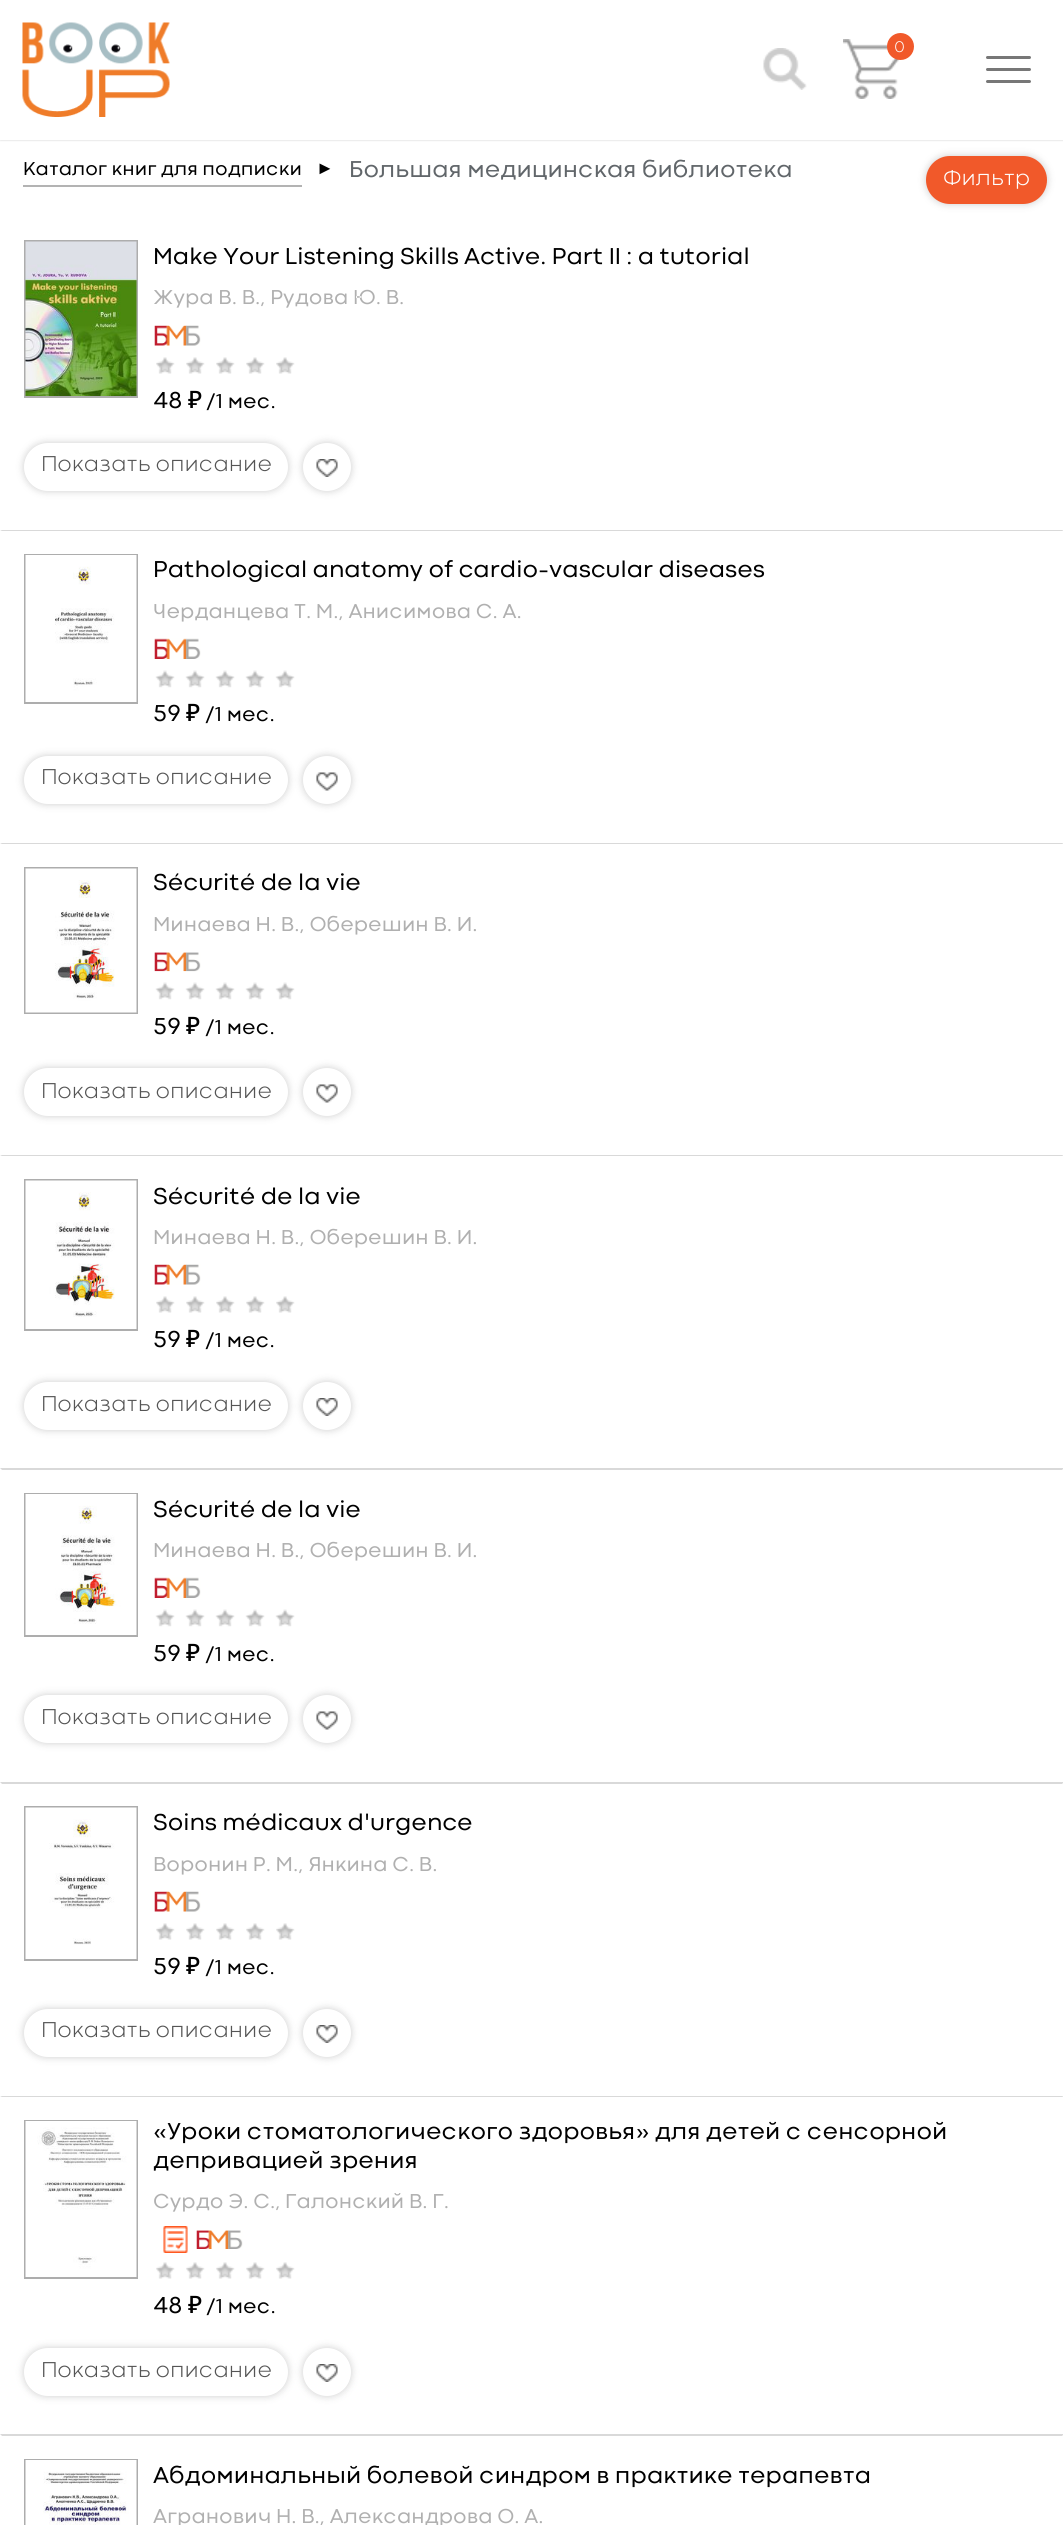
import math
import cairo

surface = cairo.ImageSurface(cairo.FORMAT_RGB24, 1063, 2525)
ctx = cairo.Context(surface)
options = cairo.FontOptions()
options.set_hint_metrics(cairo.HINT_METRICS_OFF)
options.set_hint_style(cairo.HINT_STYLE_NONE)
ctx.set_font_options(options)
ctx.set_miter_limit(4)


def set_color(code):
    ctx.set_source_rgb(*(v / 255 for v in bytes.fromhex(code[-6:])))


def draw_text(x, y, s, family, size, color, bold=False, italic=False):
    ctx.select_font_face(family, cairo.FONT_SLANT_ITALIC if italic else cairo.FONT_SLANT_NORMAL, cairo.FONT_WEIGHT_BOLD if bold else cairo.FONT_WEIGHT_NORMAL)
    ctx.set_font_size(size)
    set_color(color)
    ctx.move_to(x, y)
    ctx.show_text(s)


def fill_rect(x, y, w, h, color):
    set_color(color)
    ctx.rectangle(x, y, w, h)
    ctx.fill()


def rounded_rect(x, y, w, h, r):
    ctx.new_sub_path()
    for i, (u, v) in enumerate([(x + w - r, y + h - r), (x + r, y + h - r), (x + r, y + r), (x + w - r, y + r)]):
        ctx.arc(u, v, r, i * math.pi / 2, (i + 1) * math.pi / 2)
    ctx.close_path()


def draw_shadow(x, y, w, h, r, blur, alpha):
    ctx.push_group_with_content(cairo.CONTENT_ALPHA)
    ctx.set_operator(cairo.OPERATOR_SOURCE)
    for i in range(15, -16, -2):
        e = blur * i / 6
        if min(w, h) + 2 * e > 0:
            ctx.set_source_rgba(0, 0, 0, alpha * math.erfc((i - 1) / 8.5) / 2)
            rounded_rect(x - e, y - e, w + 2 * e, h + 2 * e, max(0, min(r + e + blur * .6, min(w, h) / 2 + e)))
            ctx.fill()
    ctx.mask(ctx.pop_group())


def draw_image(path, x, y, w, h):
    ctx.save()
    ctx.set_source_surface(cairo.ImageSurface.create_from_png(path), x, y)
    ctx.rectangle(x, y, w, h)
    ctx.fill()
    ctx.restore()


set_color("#ffffff")
ctx.paint()
ctx.save()
ctx.set_fill_rule(cairo.FILL_RULE_EVEN_ODD)
ctx.new_path()
ctx.move_to(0, 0)
ctx.line_to(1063, 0)
ctx.line_to(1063, 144)
ctx.line_to(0, 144)
ctx.close_path()
ctx.move_to(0, 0)
ctx.line_to(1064, 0)
ctx.line_to(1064, 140)
ctx.line_to(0, 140)
ctx.close_path()
ctx.clip()
set_color("#000000")
draw_shadow(0, 0, 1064, 140, 0, 1, 0.2)
ctx.restore()
draw_image("assets/img1.png", 22, 22, 148, 95)
draw_image("assets/img2.png", 843, 39, 57, 60)
set_color("#f1592a")
ctx.arc(900.5, 46.5, 13.5, 0, 2 * math.pi)
ctx.fill()
draw_text(894, 52, "0", "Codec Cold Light", 16, "#ffffff")
set_color("#777777")
rounded_rect(986, 56, 45, 3, 1.5)
ctx.fill()
rounded_rect(986, 68, 45, 3, 1.5)
ctx.fill()
rounded_rect(986, 80, 45, 3, 1.5)
ctx.fill()
draw_image("assets/img3.png", 763, 48, 44, 42)
fill_rect(23, 185, 279, 2, "#b3b3b3")
draw_text(23, 175, "Каталог книг для подписки", "Codec Cold", 19.5, "#000000")
draw_text(316, 174, "►", "Liberation Sans", 18, "#000000")
draw_text(349, 177, "Большая медицинская библиотека", "Codec Cold", 24, "#61666a")
set_color("#000000")
draw_shadow(926, 156, 121, 48, 24, 4, 0.2)
set_color("#f1592a")
rounded_rect(926, 156, 121, 48, 24)
ctx.fill()
draw_text(943, 185, "Фильтр", "Codec Cold Light", 22.5, "#ffffff")
ctx.rectangle(25, 241, 112, 156)
set_color("#adadad")
ctx.stroke()
draw_image("assets/img4.png", 25, 241, 112, 155)
draw_text(153, 264, "Make Your Listening Skills Active. Part II : a tutorial", "Codec Cold", 24, "#000000")
draw_text(153, 304, "Жура В. В., Рудова Ю. В.", "Codec Cold", 21, "#b0b0b0")
draw_image("assets/img5.png", 154, 325, 47, 21)
draw_image("assets/img6.png", 156, 357, 19, 17)
draw_image("assets/img6.png", 186, 357, 19, 17)
draw_image("assets/img6.png", 216, 357, 19, 17)
draw_image("assets/img6.png", 246, 357, 19, 17)
draw_image("assets/img7.png", 276, 357, 19, 17)
draw_text(153, 408, "48", "Codec Cold", 24, "#000000")
draw_text(188, 408, "₽", "Noto Sans Medium", 24, "#000000")
draw_text(207, 408, "/1 мес.", "Codec Cold", 21, "#000000")
set_color("#000000")
draw_shadow(24, 443, 264, 48, 24, 4, 0.2)
set_color("#ffffff")
rounded_rect(24, 443, 264, 48, 24)
ctx.fill()
draw_text(41, 471, "Показать описание", "Codec Cold Light", 22.5, "#555555")
set_color("#000000")
draw_shadow(303, 443, 48, 48, 24, 4, 0.2)
set_color("#ffffff")
ctx.arc(327, 467, 24, 0, 2 * math.pi)
ctx.fill()
draw_image("assets/img8.png", 316, 459, 22, 18)
set_color("#d9d9d9")
ctx.new_path()
ctx.move_to(0, 530)
ctx.line_to(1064, 530)
ctx.line_to(1062, 531)
ctx.line_to(2, 531)
ctx.close_path()
ctx.fill()
ctx.rectangle(25, 555, 112, 148)
set_color("#adadad")
ctx.stroke()
draw_image("assets/img9.png", 25, 555, 112, 147)
draw_text(153, 577, "Pathological anatomy of cardio–vascular diseases", "Codec Cold", 24, "#000000")
draw_text(153, 618, "Черданцева Т. М., Анисимова С. А.", "Codec Cold", 21, "#b0b0b0")
draw_image("assets/img10.png", 154, 638, 47, 21)
draw_image("assets/img11.png", 155, 670, 20, 18)
draw_image("assets/img11.png", 185, 670, 20, 18)
draw_image("assets/img11.png", 215, 670, 20, 18)
draw_image("assets/img11.png", 245, 670, 20, 18)
draw_image("assets/img12.png", 275, 670, 20, 18)
draw_text(153, 721, "59", "Codec Cold", 24, "#000000")
draw_text(186, 721, "₽", "Noto Sans Medium", 24, "#000000")
draw_text(206, 721, "/1 мес.", "Codec Cold", 21, "#000000")
set_color("#000000")
draw_shadow(24, 756, 264, 48, 24, 4, 0.2)
set_color("#ffffff")
rounded_rect(24, 756, 264, 48, 24)
ctx.fill()
draw_text(41, 784, "Показать описание", "Codec Cold Light", 22.5, "#555555")
set_color("#000000")
draw_shadow(303, 756, 48, 48, 24, 4, 0.2)
set_color("#ffffff")
ctx.arc(327, 780, 24, 0, 2 * math.pi)
ctx.fill()
draw_image("assets/img13.png", 316, 772, 22, 19)
set_color("#d9d9d9")
ctx.new_path()
ctx.move_to(0, 843)
ctx.line_to(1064, 843)
ctx.line_to(1062, 844)
ctx.line_to(2, 844)
ctx.close_path()
ctx.fill()
ctx.rectangle(25, 868, 112, 145)
set_color("#adadad")
ctx.stroke()
draw_image("assets/img14.png", 25, 868, 112, 145)
draw_text(153, 890, "Sécurité de la vie", "Codec Cold", 24, "#000000")
draw_text(153, 931, "Минаева Н. В., Оберешин В. И.", "Codec Cold", 21, "#b0b0b0")
draw_image("assets/img15.png", 154, 952, 47, 20)
draw_image("assets/img11.png", 155, 982, 20, 18)
draw_image("assets/img11.png", 185, 982, 20, 18)
draw_image("assets/img11.png", 215, 982, 20, 18)
draw_image("assets/img11.png", 245, 982, 20, 18)
draw_image("assets/img12.png", 275, 982, 20, 18)
draw_text(153, 1034, "59", "Codec Cold", 24, "#000000")
draw_text(186, 1034, "₽", "Noto Sans Medium", 24, "#000000")
draw_text(206, 1034, "/1 мес.", "Codec Cold", 21, "#000000")
set_color("#000000")
draw_shadow(24, 1068, 264, 48, 24, 4, 0.2)
set_color("#ffffff")
rounded_rect(24, 1068, 264, 48, 24)
ctx.fill()
draw_text(41, 1098, "Показать описание", "Codec Cold Light", 22.5, "#555555")
set_color("#000000")
draw_shadow(303, 1068, 48, 48, 24, 4, 0.2)
set_color("#ffffff")
ctx.arc(327, 1092, 24, 0, 2 * math.pi)
ctx.fill()
draw_image("assets/img13.png", 316, 1084, 22, 19)
set_color("#d9d9d9")
ctx.new_path()
ctx.move_to(0, 1155)
ctx.line_to(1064, 1155)
ctx.line_to(1062, 1156)
ctx.line_to(2, 1156)
ctx.close_path()
ctx.fill()
ctx.rectangle(25, 1180, 112, 150)
set_color("#adadad")
ctx.stroke()
draw_image("assets/img16.png", 25, 1180, 112, 149)
draw_text(153, 1204, "Sécurité de la vie", "Codec Cold", 24, "#000000")
draw_text(153, 1244, "Минаева Н. В., Оберешин В. И.", "Codec Cold", 21, "#b0b0b0")
draw_image("assets/img5.png", 154, 1264, 47, 21)
draw_image("assets/img6.png", 156, 1296, 19, 17)
draw_image("assets/img6.png", 186, 1296, 19, 17)
draw_image("assets/img6.png", 216, 1296, 19, 17)
draw_image("assets/img6.png", 246, 1296, 19, 17)
draw_image("assets/img7.png", 276, 1296, 19, 17)
draw_text(153, 1347, "59", "Codec Cold", 24, "#000000")
draw_text(186, 1347, "₽", "Noto Sans Medium", 24, "#000000")
draw_text(206, 1347, "/1 мес.", "Codec Cold", 21, "#000000")
set_color("#000000")
draw_shadow(24, 1382, 264, 48, 24, 4, 0.2)
set_color("#ffffff")
rounded_rect(24, 1382, 264, 48, 24)
ctx.fill()
draw_text(41, 1411, "Показать описание", "Codec Cold Light", 22.5, "#555555")
set_color("#000000")
draw_shadow(303, 1382, 48, 48, 24, 4, 0.2)
set_color("#ffffff")
ctx.arc(327, 1406, 24, 0, 2 * math.pi)
ctx.fill()
draw_image("assets/img8.png", 316, 1398, 22, 18)
set_color("#d9d9d9")
ctx.new_path()
ctx.move_to(0, 1468)
ctx.line_to(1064, 1468)
ctx.line_to(1062, 1470)
ctx.line_to(2, 1470)
ctx.close_path()
ctx.fill()
ctx.rectangle(25, 1494, 112, 142)
set_color("#adadad")
ctx.stroke()
draw_image("assets/img17.png", 25, 1494, 112, 141)
draw_text(153, 1517, "Sécurité de la vie", "Codec Cold", 24, "#000000")
draw_text(153, 1557, "Минаева Н. В., Оберешин В. И.", "Codec Cold", 21, "#b0b0b0")
draw_image("assets/img18.png", 154, 1577, 47, 21)
draw_image("assets/img11.png", 155, 1609, 20, 18)
draw_image("assets/img11.png", 185, 1609, 20, 18)
draw_image("assets/img11.png", 215, 1609, 20, 18)
draw_image("assets/img11.png", 245, 1609, 20, 18)
draw_image("assets/img12.png", 275, 1609, 20, 18)
draw_text(153, 1661, "59", "Codec Cold", 24, "#000000")
draw_text(186, 1661, "₽", "Noto Sans Medium", 24, "#000000")
draw_text(206, 1661, "/1 мес.", "Codec Cold", 21, "#000000")
set_color("#000000")
draw_shadow(24, 1695, 264, 48, 24, 4, 0.2)
set_color("#ffffff")
rounded_rect(24, 1695, 264, 48, 24)
ctx.fill()
draw_text(41, 1724, "Показать описание", "Codec Cold Light", 22.5, "#555555")
set_color("#000000")
draw_shadow(303, 1695, 48, 48, 24, 4, 0.2)
set_color("#ffffff")
ctx.arc(327, 1719, 24, 0, 2 * math.pi)
ctx.fill()
draw_image("assets/img13.png", 316, 1711, 22, 19)
set_color("#d9d9d9")
ctx.new_path()
ctx.move_to(0, 1782)
ctx.line_to(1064, 1782)
ctx.line_to(1062, 1784)
ctx.line_to(2, 1784)
ctx.close_path()
ctx.fill()
ctx.rectangle(25, 1807, 112, 153)
set_color("#adadad")
ctx.stroke()
draw_image("assets/img19.png", 25, 1807, 112, 152)
draw_text(153, 1830, "Soins médicaux d'urgence", "Codec Cold", 24, "#000000")
draw_text(153, 1871, "Воронин Р. М., Янкина С. В.", "Codec Cold", 21, "#b0b0b0")
draw_image("assets/img20.png", 154, 1891, 47, 21)
draw_image("assets/img6.png", 156, 1923, 19, 17)
draw_image("assets/img6.png", 186, 1923, 19, 17)
draw_image("assets/img6.png", 216, 1923, 19, 17)
draw_image("assets/img6.png", 246, 1923, 19, 17)
draw_image("assets/img7.png", 276, 1923, 19, 17)
draw_text(153, 1974, "59", "Codec Cold", 24, "#000000")
draw_text(186, 1974, "₽", "Noto Sans Medium", 24, "#000000")
draw_text(206, 1974, "/1 мес.", "Codec Cold", 21, "#000000")
set_color("#000000")
draw_shadow(24, 2009, 264, 48, 24, 4, 0.2)
set_color("#ffffff")
rounded_rect(24, 2009, 264, 48, 24)
ctx.fill()
draw_text(41, 2037, "Показать описание", "Codec Cold Light", 22.5, "#555555")
set_color("#000000")
draw_shadow(303, 2009, 48, 48, 24, 4, 0.2)
set_color("#ffffff")
ctx.arc(327, 2033, 24, 0, 2 * math.pi)
ctx.fill()
draw_image("assets/img8.png", 316, 2025, 22, 18)
set_color("#d9d9d9")
ctx.new_path()
ctx.move_to(0, 2096)
ctx.line_to(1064, 2096)
ctx.line_to(1062, 2097)
ctx.line_to(2, 2097)
ctx.close_path()
ctx.fill()
ctx.rectangle(25, 2121, 112, 157)
set_color("#adadad")
ctx.stroke()
draw_image("assets/img21.png", 25, 2121, 112, 156)
draw_text(153, 2139, "«Уроки стоматологического здоровья» для детей с сенсорной", "Codec Cold", 24, "#000000")
draw_text(153, 2168, "депривацией зрения", "Codec Cold", 24, "#000000")
draw_text(153, 2208, "Сурдо Э. С., Галонский В. Г.", "Codec Cold", 21, "#b0b0b0")
draw_image("assets/img22.png", 163, 2226, 25, 27)
draw_image("assets/img23.png", 196, 2230, 47, 19)
draw_image("assets/img6.png", 156, 2262, 19, 17)
draw_image("assets/img6.png", 186, 2262, 19, 17)
draw_image("assets/img6.png", 216, 2262, 19, 17)
draw_image("assets/img6.png", 246, 2262, 19, 17)
draw_image("assets/img7.png", 276, 2262, 19, 17)
draw_text(153, 2313, "48", "Codec Cold", 24, "#000000")
draw_text(188, 2313, "₽", "Noto Sans Medium", 24, "#000000")
draw_text(207, 2313, "/1 мес.", "Codec Cold", 21, "#000000")
set_color("#000000")
draw_shadow(24, 2348, 264, 48, 24, 4, 0.2)
set_color("#ffffff")
rounded_rect(24, 2348, 264, 48, 24)
ctx.fill()
draw_text(41, 2377, "Показать описание", "Codec Cold Light", 22.5, "#555555")
set_color("#000000")
draw_shadow(303, 2348, 48, 48, 24, 4, 0.2)
set_color("#ffffff")
ctx.arc(327, 2372, 24, 0, 2 * math.pi)
ctx.fill()
draw_image("assets/img8.png", 316, 2364, 22, 18)
set_color("#d9d9d9")
ctx.new_path()
ctx.move_to(0, 2434)
ctx.line_to(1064, 2434)
ctx.line_to(1062, 2436)
ctx.line_to(2, 2436)
ctx.close_path()
ctx.fill()
ctx.rectangle(25, 2460, 112, 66)
set_color("#adadad")
ctx.stroke()
draw_image("assets/img24.png", 25, 2460, 112, 65)
draw_text(153, 2483, "Абдоминальный болевой синдром в практике терапевта", "Codec Cold", 24, "#000000")
draw_text(153, 2523, "Агранович Н. В., Александрова О. А.", "Codec Cold", 21, "#b0b0b0")
surface.write_to_png("output.png")
